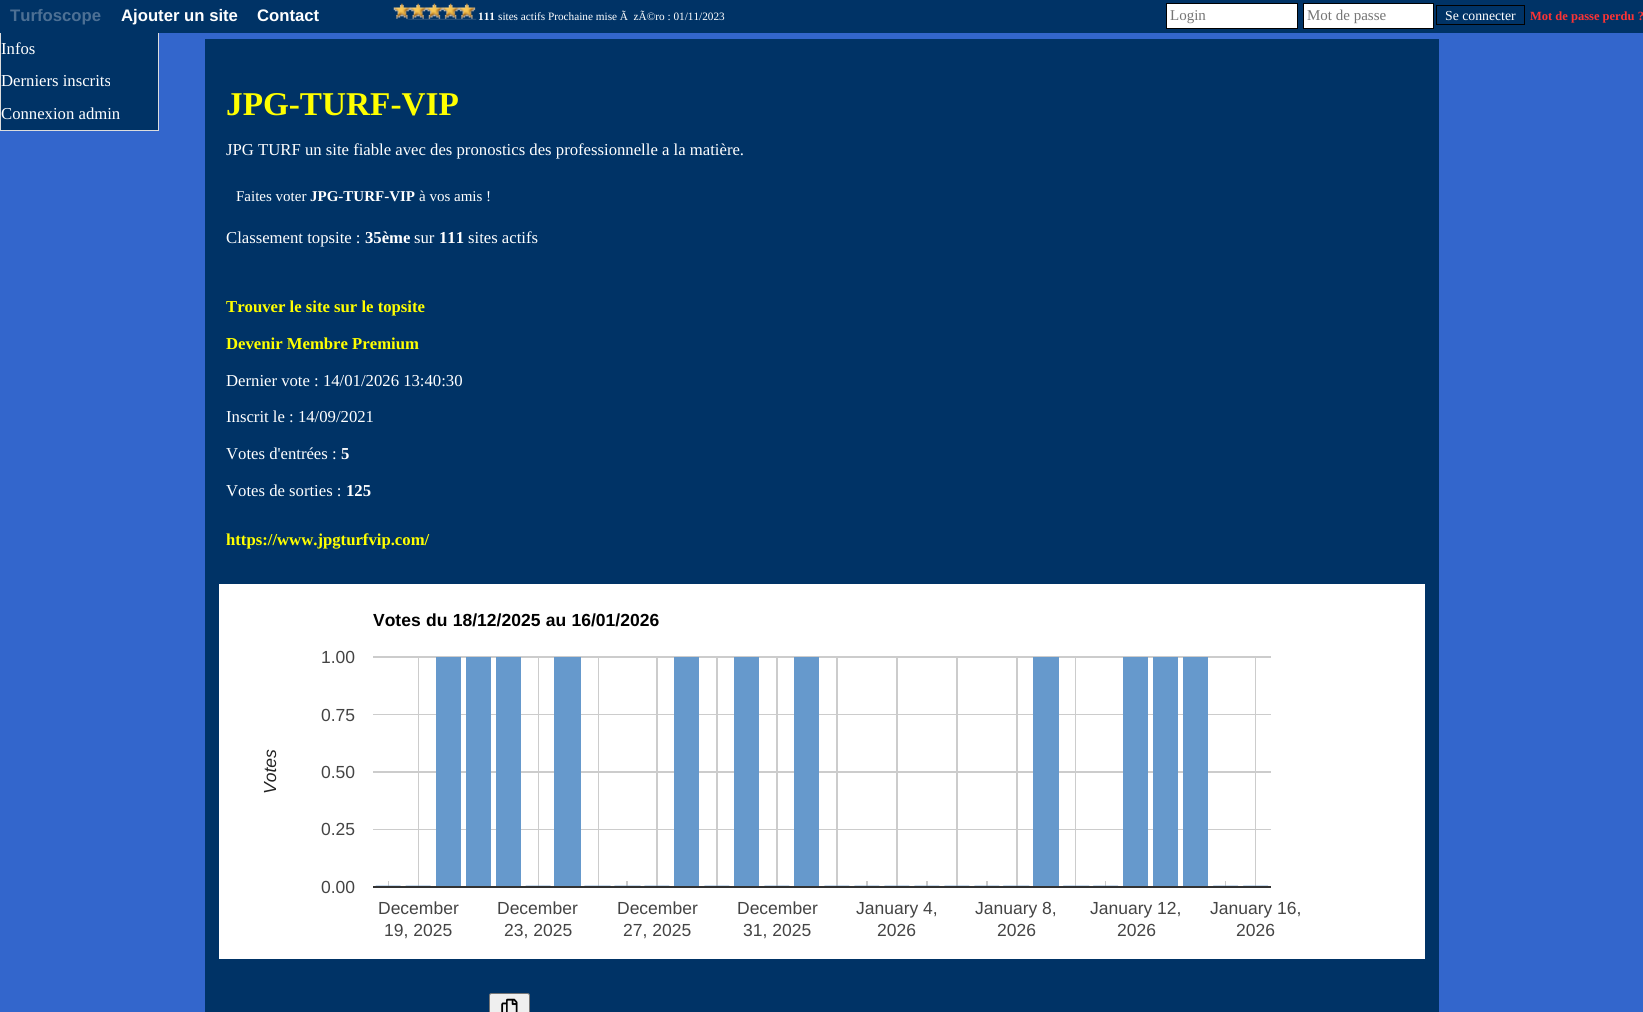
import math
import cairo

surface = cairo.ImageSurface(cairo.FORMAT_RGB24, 1643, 1012)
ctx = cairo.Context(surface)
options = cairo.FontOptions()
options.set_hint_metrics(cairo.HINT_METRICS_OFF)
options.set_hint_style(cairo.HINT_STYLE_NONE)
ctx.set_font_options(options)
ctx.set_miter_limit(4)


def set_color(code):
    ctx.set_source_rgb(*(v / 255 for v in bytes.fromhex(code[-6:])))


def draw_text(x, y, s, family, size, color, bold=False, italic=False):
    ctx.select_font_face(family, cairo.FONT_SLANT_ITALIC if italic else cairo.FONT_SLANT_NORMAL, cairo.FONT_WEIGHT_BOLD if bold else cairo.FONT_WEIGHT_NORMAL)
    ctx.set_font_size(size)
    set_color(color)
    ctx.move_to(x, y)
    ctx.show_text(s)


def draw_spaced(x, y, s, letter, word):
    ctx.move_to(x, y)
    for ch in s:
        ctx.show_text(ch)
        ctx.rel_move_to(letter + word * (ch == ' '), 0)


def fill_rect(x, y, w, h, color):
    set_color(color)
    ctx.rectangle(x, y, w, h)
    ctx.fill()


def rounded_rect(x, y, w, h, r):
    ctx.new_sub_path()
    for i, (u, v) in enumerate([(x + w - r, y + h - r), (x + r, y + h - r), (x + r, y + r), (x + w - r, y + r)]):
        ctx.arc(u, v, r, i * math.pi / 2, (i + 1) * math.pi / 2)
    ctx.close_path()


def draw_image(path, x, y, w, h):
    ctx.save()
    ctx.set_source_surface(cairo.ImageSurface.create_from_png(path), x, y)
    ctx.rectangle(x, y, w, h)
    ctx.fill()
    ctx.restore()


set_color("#3366cc")
ctx.paint()
fill_rect(0, 0, 1643, 33, "#003366")
draw_text(10, 21, "Turfoscope", "Liberation Sans", 16.7, "#4d7094", bold=True)
fill_rect(158, 33, 1, 98, "#dddddd")
fill_rect(0, 130, 159, 1, "#dddddd")
fill_rect(0, 33, 1, 98, "#dddddd")
fill_rect(1, 33, 157, 97, "#003366")
draw_text(1, 54, "Infos", "Liberation Serif", 16.7, "#ffffff")
draw_text(1, 86, "Derniers inscrits", "Liberation Serif", 16.7, "#ffffff")
draw_text(1, 119, "Connexion admin", "Liberation Serif", 16.7, "#ffffff")
draw_text(121, 21, "Ajouter un site", "Liberation Sans", 16.7, "#ffffff", bold=True)
draw_text(257, 21, "Contact", "Liberation Sans", 16.7, "#ffffff", bold=True)
draw_image("assets/img1.png", 393, 3, 84, 17)
draw_text(478, 20, "111", "Liberation Serif", 11.25, "#ffffff", bold=True)
draw_text(498, 20, "sites actifs Prochaine mise Ã  zÃ©ro : 01/11/2023", "Liberation Serif", 11.25, "#ffffff")
ctx.rectangle(1166.5, 3.5, 131, 25)
ctx.fill_preserve()
set_color("#000000")
ctx.set_line_width(1)
ctx.stroke()
draw_text(1170, 20, "Login", "Liberation Serif", 15, "#757575")
set_color("#ffffff")
ctx.rectangle(1303.5, 3.5, 130, 25)
ctx.fill_preserve()
set_color("#000000")
ctx.stroke()
draw_text(1307, 20, "Mot de passe", "Liberation Serif", 15, "#757575")
ctx.rectangle(1436.5, 5.5, 88, 19)
set_color("#000000")
ctx.stroke()
draw_text(1445, 20, "Se connecter", "Liberation Serif", 13.75, "#ffffff")
draw_text(1530, 20, "Mot de passe perdu ?", "Liberation Serif", 12.5, "#ff3333", bold=True)
fill_rect(205, 39, 1234, 973, "#003366")
draw_text(226, 115, "JPG-TURF-VIP", "Liberation Serif", 33.25, "#ffff00", bold=True)
draw_text(226, 155, "JPG TURF un site fiable avec des pronostics des professionnelle a la matière.", "Liberation Serif", 16.7, "#ffffff")
draw_text(236, 201, "Faites voter", "Liberation Serif", 15, "#ffffff")
draw_text(310, 201, "JPG-TURF-VIP", "Liberation Serif", 15, "#ffffff", bold=True)
draw_text(419, 201, "à vos amis !", "Liberation Serif", 15, "#ffffff")
draw_text(226, 243, "Classement topsite :", "Liberation Serif", 16.7, "#ffffff")
draw_text(365, 243, "35ème", "Liberation Serif", 16.7, "#ffffff", bold=True)
draw_text(414, 243, "sur", "Liberation Serif", 16.7, "#ffffff")
draw_text(439, 243, "111", "Liberation Serif", 16.7, "#ffffff", bold=True)
draw_text(468, 243, "sites actifs", "Liberation Serif", 16.7, "#ffffff")
draw_text(226, 312, "Trouver le site sur le topsite", "Liberation Serif", 16.7, "#ffff00", bold=True)
draw_text(226, 349, "Devenir Membre Premium", "Liberation Serif", 16.7, "#ffff00", bold=True)
draw_text(226, 386, "Dernier vote : 14/01/2026 13:40:30", "Liberation Serif", 16.7, "#ffffff")
draw_text(226, 422, "Inscrit le : 14/09/2021", "Liberation Serif", 16.7, "#ffffff")
draw_text(226, 459, "Votes d'entrées :", "Liberation Serif", 16.7, "#ffffff")
draw_text(341, 459, "5", "Liberation Serif", 16.7, "#ffffff", bold=True)
draw_text(226, 496, "Votes de sorties :", "Liberation Serif", 16.7, "#ffffff")
draw_text(346, 496, "125", "Liberation Serif", 16.7, "#ffffff", bold=True)
draw_text(226, 545, "https://www.jpgturfvip.com/", "Liberation Serif", 16.7, "#ffff00", bold=True)
draw_image("assets/img2.png", 219, 584, 1206, 375)
ctx.select_font_face("Liberation Sans", cairo.FONT_SLANT_NORMAL, cairo.FONT_WEIGHT_BOLD)
ctx.set_font_size(17.5)
set_color("#000000")
draw_spaced(373, 626, "Votes du 18/12/2025 au 16/01/2026", 0, 0.5)
draw_text(321, 663, "1.00", "Liberation Sans", 17.5, "#444444")
draw_text(321, 721, "0.75", "Liberation Sans", 17.5, "#444444")
ctx.save()
ctx.translate(276, 794)
ctx.rotate(-90 * math.pi / 180)
draw_text(0, 0, "Votes", "Liberation Sans", 17.5, "#222222", italic=True)
ctx.restore()
draw_text(321, 778, "0.50", "Liberation Sans", 17.5, "#444444")
draw_text(321, 835, "0.25", "Liberation Sans", 17.5, "#444444")
draw_text(321, 893, "0.00", "Liberation Sans", 17.5, "#444444")
draw_text(378, 914, "December", "Liberation Sans", 17.5, "#444444")
draw_text(497, 914, "December", "Liberation Sans", 17.5, "#444444")
draw_text(617, 914, "December", "Liberation Sans", 17.5, "#444444")
draw_text(737, 914, "December", "Liberation Sans", 17.5, "#444444")
draw_text(856, 914, "January 4,", "Liberation Sans", 17.5, "#444444")
draw_text(975, 914, "January 8,", "Liberation Sans", 17.5, "#444444")
draw_text(1090, 914, "January 12,", "Liberation Sans", 17.5, "#444444")
draw_text(1210, 914, "January 16,", "Liberation Sans", 17.5, "#444444")
draw_text(384, 936, "19, 2025", "Liberation Sans", 17.5, "#444444")
draw_text(504, 936, "23, 2025", "Liberation Sans", 17.5, "#444444")
draw_text(623, 936, "27, 2025", "Liberation Sans", 17.5, "#444444")
draw_text(743, 936, "31, 2025", "Liberation Sans", 17.5, "#444444")
draw_text(877, 936, "2026", "Liberation Sans", 17.5, "#444444")
draw_text(997, 936, "2026", "Liberation Sans", 17.5, "#444444")
draw_text(1117, 936, "2026", "Liberation Sans", 17.5, "#444444")
draw_text(1236, 936, "2026", "Liberation Sans", 17.5, "#444444")
set_color("#efefef")
rounded_rect(489.5, 993.5, 40, 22, 2)
ctx.fill_preserve()
set_color("#767676")
ctx.stroke()
draw_image("assets/img3.png", 501, 998, 17, 14)
surface.write_to_png("output.png")
